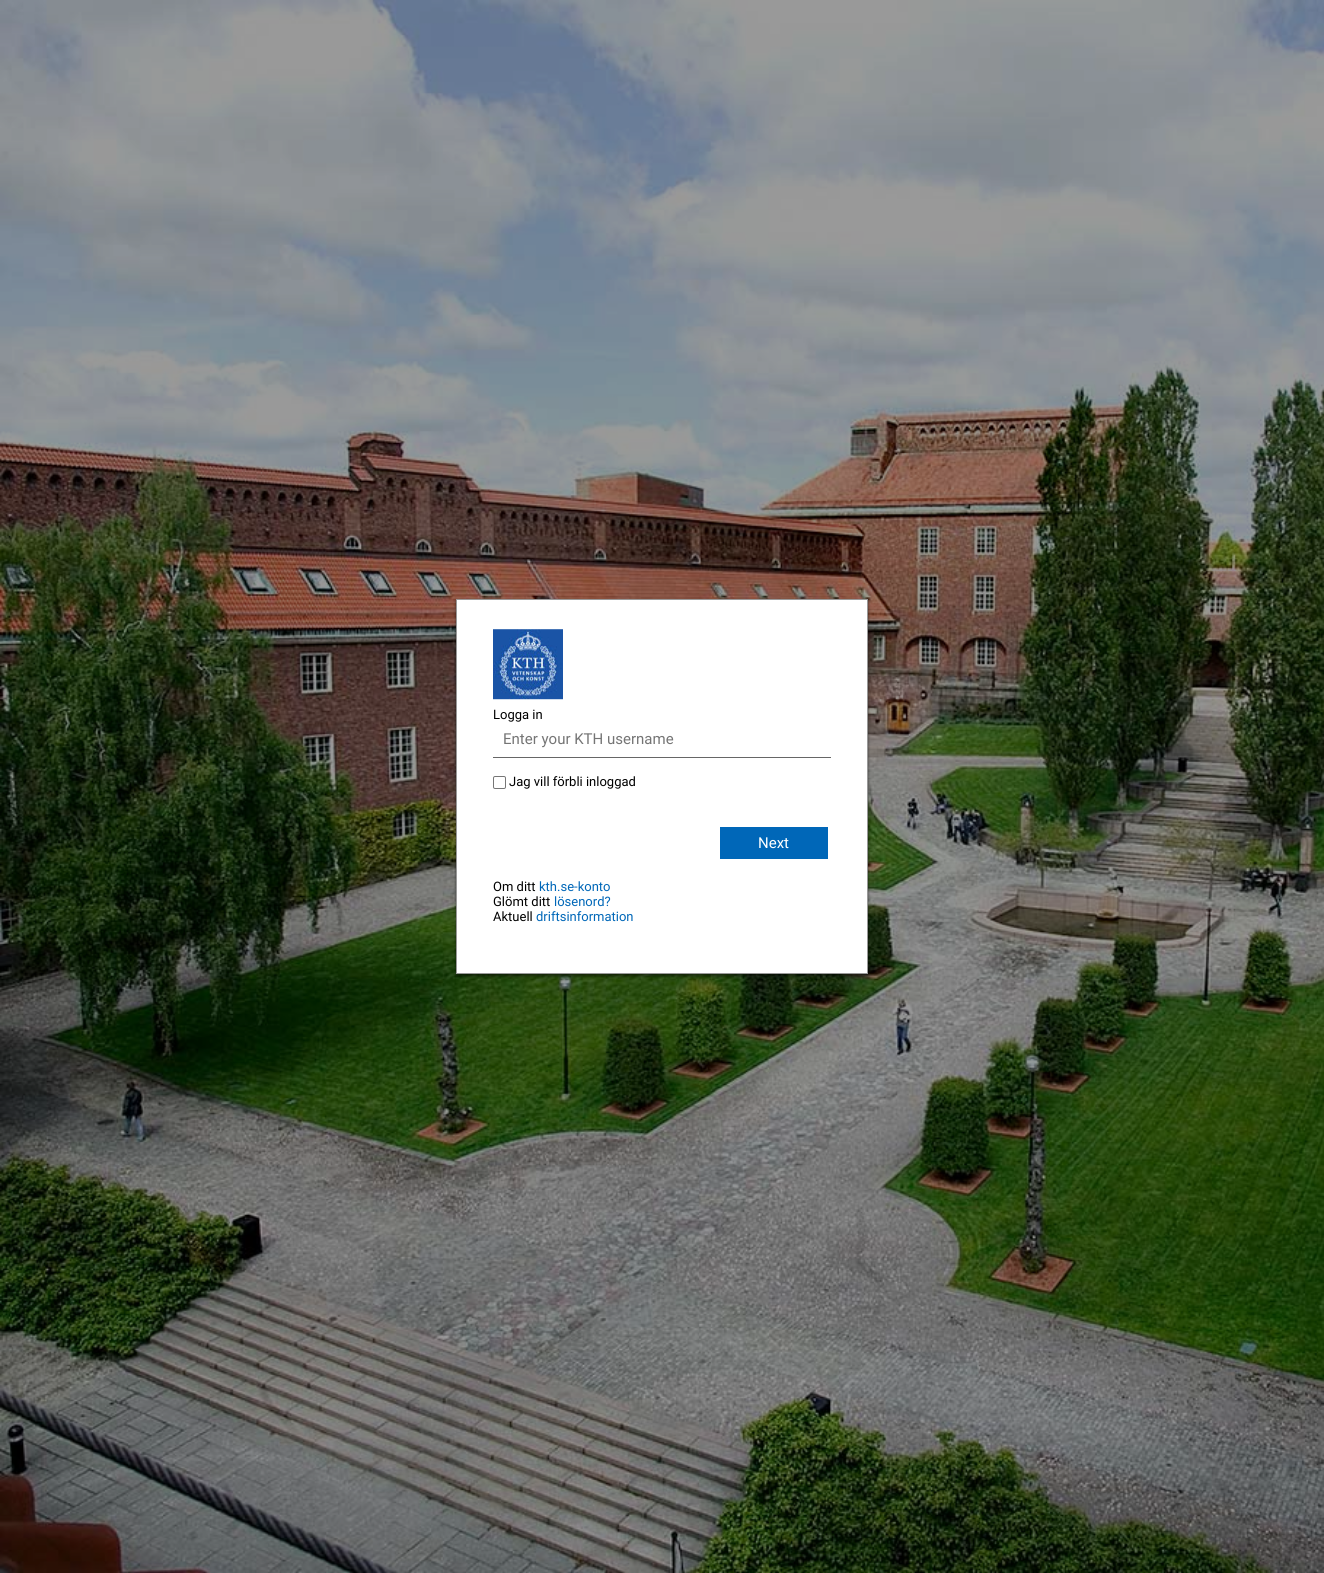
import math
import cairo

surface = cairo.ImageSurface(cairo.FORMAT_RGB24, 1324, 1573)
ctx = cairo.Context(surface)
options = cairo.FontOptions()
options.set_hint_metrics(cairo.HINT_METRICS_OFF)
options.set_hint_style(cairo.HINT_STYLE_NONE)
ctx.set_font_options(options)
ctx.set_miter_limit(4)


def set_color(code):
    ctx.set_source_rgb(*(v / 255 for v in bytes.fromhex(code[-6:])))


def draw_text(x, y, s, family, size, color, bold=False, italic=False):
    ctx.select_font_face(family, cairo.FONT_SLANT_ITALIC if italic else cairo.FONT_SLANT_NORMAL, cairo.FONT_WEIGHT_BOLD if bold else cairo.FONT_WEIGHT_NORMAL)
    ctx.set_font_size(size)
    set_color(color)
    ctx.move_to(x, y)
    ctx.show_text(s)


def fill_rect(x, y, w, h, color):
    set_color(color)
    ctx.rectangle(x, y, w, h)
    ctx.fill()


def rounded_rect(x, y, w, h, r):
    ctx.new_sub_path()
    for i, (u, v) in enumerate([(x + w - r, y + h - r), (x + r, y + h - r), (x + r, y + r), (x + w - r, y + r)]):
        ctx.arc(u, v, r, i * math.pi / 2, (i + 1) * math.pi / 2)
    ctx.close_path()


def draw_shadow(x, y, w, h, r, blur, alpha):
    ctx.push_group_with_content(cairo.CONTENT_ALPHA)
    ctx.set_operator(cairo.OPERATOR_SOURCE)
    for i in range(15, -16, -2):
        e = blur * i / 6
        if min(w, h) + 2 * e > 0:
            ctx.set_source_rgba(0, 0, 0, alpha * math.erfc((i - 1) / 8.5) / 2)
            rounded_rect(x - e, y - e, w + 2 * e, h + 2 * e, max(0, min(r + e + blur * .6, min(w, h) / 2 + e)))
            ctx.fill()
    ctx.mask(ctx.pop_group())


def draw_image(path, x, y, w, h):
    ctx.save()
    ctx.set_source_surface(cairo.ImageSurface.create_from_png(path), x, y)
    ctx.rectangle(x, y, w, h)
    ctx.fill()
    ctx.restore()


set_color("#ffffff")
ctx.paint()
draw_image("assets/img1.png", 0, 0, 1324, 1573)
set_color("#000000")
draw_shadow(456, 601, 412, 375, 0, 1.5, 0.55)
set_color("#ffffff")
ctx.rectangle(456.5, 599.5, 411, 374)
ctx.fill_preserve()
set_color("#999999")
ctx.set_line_width(1)
ctx.stroke()
draw_image("assets/img2.png", 493, 629, 70, 71)
draw_text(493, 719, "Logga in", "Roboto", 13, "#000000")
fill_rect(493, 757, 338, 1, "#666666")
draw_text(503, 744, "Enter your KTH username", "Roboto", 15, "#757575")
rounded_rect(493.5, 776.5, 12, 12, 1.5)
set_color("#767676")
ctx.stroke()
draw_text(509, 786, "Jag vill förbli inloggad", "Roboto", 13, "#000000")
fill_rect(720, 827, 108, 32, "#0067b8")
draw_text(758, 848, "Next", "Roboto", 15, "#ffffff")
draw_text(493, 891, "Om ditt", "Roboto", 13, "#000000")
draw_text(539, 891, "kth.se-konto", "Roboto", 13, "#0067b8")
draw_text(493, 906, "Glömt ditt", "Roboto", 13, "#000000")
draw_text(554, 906, "lösenord?", "Roboto", 13, "#0067b8")
draw_text(493, 921, "Aktuell", "Roboto", 13, "#000000")
draw_text(536, 921, "driftsinformation", "Roboto", 13, "#0067b8")
surface.write_to_png("output.png")
